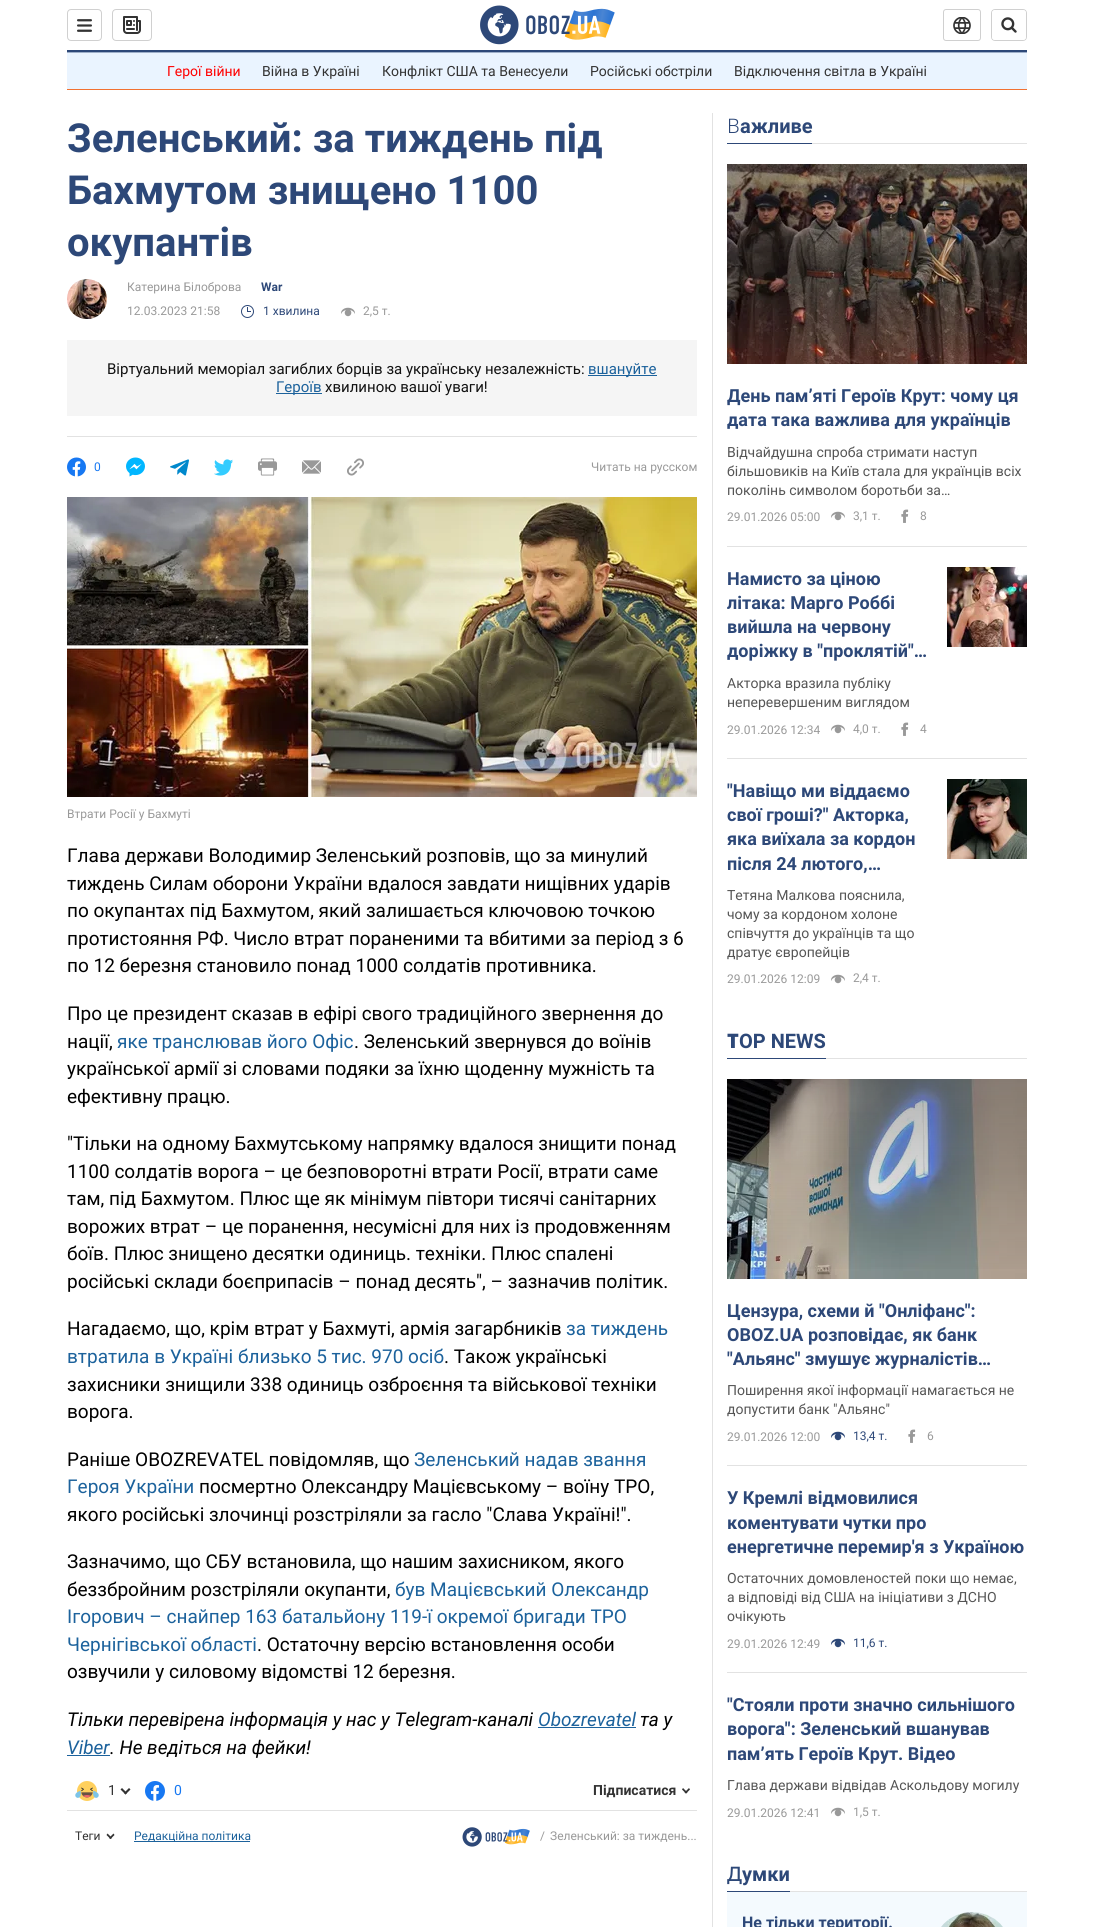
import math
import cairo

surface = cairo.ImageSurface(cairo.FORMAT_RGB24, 1094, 1927)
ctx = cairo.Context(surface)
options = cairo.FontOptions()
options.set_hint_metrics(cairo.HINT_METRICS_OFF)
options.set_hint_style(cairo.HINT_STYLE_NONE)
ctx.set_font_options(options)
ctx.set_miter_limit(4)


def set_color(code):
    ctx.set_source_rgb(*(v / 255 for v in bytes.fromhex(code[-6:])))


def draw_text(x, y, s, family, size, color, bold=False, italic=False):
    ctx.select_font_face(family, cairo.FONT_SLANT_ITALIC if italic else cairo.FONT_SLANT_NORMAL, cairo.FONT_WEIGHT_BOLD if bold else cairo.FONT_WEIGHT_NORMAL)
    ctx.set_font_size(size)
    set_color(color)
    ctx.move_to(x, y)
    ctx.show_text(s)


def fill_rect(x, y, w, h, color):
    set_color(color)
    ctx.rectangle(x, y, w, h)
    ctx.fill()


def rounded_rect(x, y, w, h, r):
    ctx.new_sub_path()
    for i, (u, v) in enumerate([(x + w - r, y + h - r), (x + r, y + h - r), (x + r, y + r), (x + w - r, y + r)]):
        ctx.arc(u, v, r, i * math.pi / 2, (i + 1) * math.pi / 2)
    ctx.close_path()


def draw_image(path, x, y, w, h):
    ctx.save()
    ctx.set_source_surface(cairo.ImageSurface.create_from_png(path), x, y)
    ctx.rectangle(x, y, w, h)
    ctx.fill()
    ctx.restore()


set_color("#ffffff")
ctx.paint()
fill_rect(67, 50, 960, 2, "#2d4878")
rounded_rect(67.5, 9.5, 34, 31, 3.5)
set_color("#d0d0d0")
ctx.set_line_width(1)
ctx.stroke()
draw_image("assets/img1.png", 77, 19, 15, 13)
rounded_rect(112.5, 9.5, 39, 31, 3.5)
ctx.stroke()
draw_image("assets/img2.png", 123, 16, 18, 18)
draw_image("assets/img3.png", 480, 5, 135, 40)
rounded_rect(943.5, 9.5, 37, 31, 2.5)
ctx.stroke()
draw_image("assets/img4.png", 953, 17, 18, 17)
rounded_rect(991.5, 9.5, 35, 31, 3.5)
ctx.stroke()
set_color("#ffffff")
rounded_rect(992, 10, 34, 30, 3)
ctx.fill()
draw_image("assets/img5.png", 1001, 17, 16, 16)
fill_rect(67, 53, 960, 36, "#eaf4ff")
fill_rect(67, 52, 960, 1, "#9eafc9")
fill_rect(67, 89, 960, 1, "#f17132")
draw_text(167, 76, "Герої війни", "Roboto", 14, "#ff0000")
draw_text(262, 76, "Війна в Україні", "Roboto", 14, "#333333")
draw_text(382, 76, "Конфлікт США та Венесуели", "Roboto", 14, "#333333")
draw_text(590, 76, "Російські обстріли", "Roboto", 14, "#333333")
draw_text(734, 76, "Відключення світла в Україні", "Roboto", 14, "#333333")
fill_rect(67, 436, 630, 1, "#e2e2e2")
draw_text(67, 152, "Зеленський: за тиждень під", "Roboto", 40, "#2d4878", bold=True)
draw_text(67, 204, "Бахмутом знищено 1100", "Roboto", 40, "#2d4878", bold=True)
draw_text(67, 256, "окупантів", "Roboto", 40, "#2d4878", bold=True)
draw_image("assets/img6.png", 67, 279, 40, 40)
draw_text(127, 291, "Катерина Білоброва", "Roboto", 12, "#999999")
draw_text(261, 291, "War", "Roboto", 12, "#2d4878", bold=True)
draw_text(127, 315, "12.03.2023 21:58", "Roboto", 12, "#999999")
draw_image("assets/img7.png", 241, 305, 13, 13)
draw_text(263, 315, "1 хвилина", "Roboto", 12, "#2d4878")
draw_image("assets/img8.png", 341, 307, 14, 10)
draw_text(363, 315, "2,5 т.", "Roboto", 12, "#999999")
fill_rect(67, 340, 630, 76, "#f5f5f5")
draw_text(107, 374, "Віртуальний меморіал загиблих борців за українську незалежність:", "Roboto", 15, "#121212")
fill_rect(588, 375, 69, 1, "#1c629c")
draw_text(588, 374, "вшануйте", "Roboto", 15, "#1c629c")
fill_rect(276, 393, 46, 1, "#1c629c")
draw_text(276, 392, "Героїв", "Roboto", 15, "#1c629c")
draw_text(325, 392, "хвилиною вашої уваги!", "Roboto", 15, "#121212")
draw_image("assets/img9.png", 67, 457, 19, 20)
draw_text(94, 471, "0", "Roboto", 12, "#1778f2")
draw_image("assets/img10.png", 126, 457, 19, 20)
draw_image("assets/img11.png", 170, 459, 19, 17)
draw_image("assets/img12.png", 214, 459, 19, 17)
draw_image("assets/img13.png", 258, 458, 19, 18)
draw_image("assets/img14.png", 302, 460, 19, 14)
draw_image("assets/img15.png", 347, 458, 17, 18)
draw_text(591, 471, "Читать на русском", "Roboto", 12, "#999999")
draw_image("assets/img16.png", 67, 497, 630, 300)
draw_text(67, 818, "Втрати Росії у Бахмуті", "Roboto", 12, "#999999")
draw_text(67, 862, "Глава держави Володимир Зеленський розповів, що за минулий", "Roboto", 19, "#000000")
draw_text(67, 890, "тиждень Силам оборони України вдалося завдати нищівних ударів", "Roboto", 19, "#000000")
draw_text(67, 917, "по окупантах під Бахмутом, який залишається ключовою точкою", "Roboto", 19, "#000000")
draw_text(67, 945, "протистояння РФ. Число втрат пораненими та вбитими за період з 6", "Roboto", 19, "#000000")
draw_text(67, 972, "по 12 березня становило понад 1000 солдатів противника.", "Roboto", 19, "#000000")
draw_text(67, 1020, "Про це президент сказав в ефірі свого традиційного звернення до", "Roboto", 19, "#000000")
draw_text(67, 1048, "нації,", "Roboto", 19, "#000000")
draw_text(117, 1048, "яке транслював його Офіс", "Roboto", 19, "#1c629c")
draw_text(354, 1048, ". Зеленський звернувся до воїнів", "Roboto", 19, "#000000")
draw_text(67, 1075, "української армії зі словами подяки за їхню щоденну мужність та", "Roboto", 19, "#000000")
draw_text(67, 1103, "ефективну працю.", "Roboto", 19, "#000000")
draw_text(67, 1150, "\"Тільки на одному Бахмутському напрямку вдалося знищити понад", "Roboto", 19, "#000000")
draw_text(67, 1178, "1100 солдатів ворога – це безповоротні втрати Росії, втрати саме", "Roboto", 19, "#000000")
draw_text(67, 1205, "там, під Бахмутом. Плюс ще як мінімум півтори тисячі санітарних", "Roboto", 19, "#000000")
draw_text(67, 1233, "ворожих втрат – це поранення, несумісні для них із продовженням", "Roboto", 19, "#000000")
draw_text(67, 1260, "боїв. Плюс знищено десятки одиниць. техніки. Плюс спалені", "Roboto", 19, "#000000")
draw_text(67, 1288, "російські склади боєприпасів – понад десять\", – зазначив політик.", "Roboto", 19, "#000000")
draw_text(67, 1335, "Нагадаємо, що, крім втрат у Бахмуті, армія загарбників", "Roboto", 19, "#000000")
draw_text(566, 1335, "за тиждень", "Roboto", 19, "#1c629c")
draw_text(67, 1363, "втратила в Україні близько 5 тис. 970 осіб", "Roboto", 19, "#1c629c")
draw_text(444, 1363, ". Також українські", "Roboto", 19, "#000000")
draw_text(67, 1391, "захисники знищили 338 одиниць озброєння та військової техніки", "Roboto", 19, "#000000")
draw_text(67, 1418, "ворога.", "Roboto", 19, "#000000")
draw_text(67, 1466, "Раніше OBOZREVATEL повідомляв, що", "Roboto", 19, "#000000")
draw_text(414, 1466, "Зеленський надав звання", "Roboto", 19, "#1c629c")
draw_text(67, 1493, "Героя України", "Roboto", 19, "#1c629c")
draw_text(199, 1493, "посмертно Олександру Мацієвському – воїну ТРО,", "Roboto", 19, "#000000")
draw_text(67, 1521, "якого російські злочинці розстріляли за гасло \"Слава Україні!\".", "Roboto", 19, "#000000")
draw_text(67, 1568, "Зазначимо, що СБУ встановила, що нашим захисником, якого", "Roboto", 19, "#000000")
draw_text(67, 1596, "беззбройним розстріляли окупанти,", "Roboto", 19, "#000000")
draw_text(395, 1596, "був Мацієвський Олександр", "Roboto", 19, "#1c629c")
draw_text(67, 1623, "Ігорович – снайпер 163 батальйону 119-ї окремої бригади ТРО", "Roboto", 19, "#1c629c")
draw_text(67, 1651, "Чернігівської області", "Roboto", 19, "#1c629c")
draw_text(257, 1651, ". Остаточну версію встановлення особи", "Roboto", 19, "#000000")
draw_text(67, 1678, "озвучили у силовому відомстві 12 березня.", "Roboto", 19, "#000000")
draw_text(67, 1726, "Тільки перевірена інформація у нас у Telegram-каналі", "Roboto", 19, "#000000", italic=True)
draw_text(538, 1726, "Obozrevatel", "Roboto", 19, "#1c629c", italic=True)
draw_text(640, 1726, "та у", "Roboto", 19, "#000000", italic=True)
fill_rect(538, 1727, 98, 1, "#1c629c")
draw_text(67, 1754, "Viber", "Roboto", 19, "#1c629c", italic=True)
draw_text(110, 1754, ". Не ведіться на фейки!", "Roboto", 19, "#000000", italic=True)
fill_rect(67, 1755, 43, 1, "#1c629c")
fill_rect(67, 1810, 630, 1, "#e2e2e2")
draw_image("assets/img17.png", 75, 1781, 24, 20)
draw_text(108, 1795, "1", "Roboto", 14, "#333333")
ctx.new_path()
ctx.move_to(129, 1788)
ctx.line_to(130.5, 1789.5)
ctx.line_to(125.5, 1794.5)
ctx.line_to(124, 1793)
ctx.close_path()
ctx.fill()
ctx.new_path()
ctx.move_to(122, 1788)
ctx.line_to(127, 1793)
ctx.line_to(125.5, 1794.5)
ctx.line_to(120.5, 1789.5)
ctx.close_path()
ctx.fill()
draw_image("assets/img18.png", 145, 1781, 20, 20)
draw_text(174, 1795, "0", "Roboto", 14, "#1778f2")
draw_text(593, 1795, "Підписатися", "Roboto", 14, "#333333", bold=True)
ctx.new_path()
ctx.move_to(689, 1788)
ctx.line_to(690, 1789.5)
ctx.line_to(686, 1793.5)
ctx.line_to(684.5, 1792.5)
ctx.close_path()
ctx.fill()
ctx.new_path()
ctx.move_to(683, 1788)
ctx.line_to(687.5, 1792.5)
ctx.line_to(686, 1793.5)
ctx.line_to(682, 1789.5)
ctx.close_path()
ctx.fill()
draw_text(75, 1840, "Теги", "Roboto", 12, "#333333")
ctx.new_path()
ctx.move_to(113.5, 1833.5)
ctx.line_to(114.5, 1835)
ctx.line_to(110.5, 1839)
ctx.line_to(109, 1838)
ctx.close_path()
ctx.fill()
ctx.new_path()
ctx.move_to(107.5, 1833.5)
ctx.line_to(112, 1838)
ctx.line_to(110.5, 1839)
ctx.line_to(106.5, 1835)
ctx.close_path()
ctx.fill()
fill_rect(134, 1841, 116, 1, "#1c629c")
draw_text(134, 1840, "Редакційна політика", "Roboto", 12, "#1c629c")
draw_image("assets/img19.png", 462, 1827, 68, 20)
draw_text(540, 1840, "/", "Roboto", 12, "#999999")
draw_text(550, 1840, "Зеленський: за тиждень...", "Roboto", 12, "#999999")
fill_rect(712, 113, 1, 1814, "#e2e2e2")
fill_rect(812, 143, 215, 1, "#e2e2e2")
draw_text(727, 133, "В", "Noto Sans Light", 20, "#2d4878")
draw_text(740, 133, "ажливе", "Roboto", 20, "#2d4878", bold=True)
fill_rect(727, 143, 85, 1, "#2d4878")
fill_rect(727, 546, 300, 1, "#e2e2e2")
draw_image("assets/img20.png", 727, 164, 300, 200)
gradient = cairo.LinearGradient(877, 164, 877, 369)
gradient.add_color_stop_rgba(0, 0, 0, 0, 0.3)
gradient.add_color_stop_rgba(1, 0, 0, 0, 0)
ctx.set_source(gradient)
ctx.rectangle(727, 164, 300, 190)
ctx.fill()
draw_text(727, 402, "День памʼяті Героїв Крут: чому ця", "Roboto", 18, "#2d4878", bold=True)
draw_text(727, 426, "дата така важлива для українців", "Roboto", 18, "#2d4878", bold=True)
draw_text(727, 457, "Відчайдушна спроба стримати наступ", "Roboto", 14, "#555555")
draw_text(727, 476, "більшовиків на Київ стала для українців всіх", "Roboto", 14, "#555555")
draw_text(727, 495, "поколінь символом боротьби за…", "Roboto", 14, "#555555")
draw_text(727, 521, "29.01.2026 05:00", "Roboto", 12, "#999999")
draw_image("assets/img8.png", 831, 511, 14, 10)
draw_text(853, 520, "3,1 т.", "Roboto", 12, "#999999")
draw_image("assets/img21.png", 901, 509, 8, 14)
draw_text(920, 520, "8", "Roboto", 12, "#999999")
fill_rect(727, 758, 300, 1, "#e2e2e2")
draw_text(727, 585, "Намисто за ціною", "Roboto", 18, "#2d4878", bold=True)
draw_text(727, 609, "літака: Марго Роббі", "Roboto", 18, "#2d4878", bold=True)
draw_text(727, 633, "вийшла на червону", "Roboto", 18, "#2d4878", bold=True)
draw_text(727, 657, "доріжку в \"проклятій\"…", "Roboto", 18, "#2d4878", bold=True)
draw_text(727, 688, "Акторка вразила публіку", "Roboto", 14, "#555555")
draw_text(727, 707, "неперевершеним виглядом", "Roboto", 14, "#555555")
draw_text(727, 734, "29.01.2026 12:34", "Roboto", 12, "#999999")
draw_image("assets/img8.png", 831, 724, 14, 10)
draw_text(853, 733, "4,0 т.", "Roboto", 12, "#999999")
draw_image("assets/img21.png", 901, 722, 8, 14)
draw_text(920, 733, "4", "Roboto", 12, "#999999")
draw_image("assets/img22.png", 947, 567, 80, 80)
draw_text(727, 797, "\"Навіщо ми віддаємо", "Roboto", 18, "#2d4878", bold=True)
draw_text(727, 821, "свої гроші?\" Акторка,", "Roboto", 18, "#2d4878", bold=True)
draw_text(727, 845, "яка виїхала за кордон", "Roboto", 18, "#2d4878", bold=True)
draw_text(727, 870, "після 24 лютого,…", "Roboto", 18, "#2d4878", bold=True)
draw_text(727, 900, "Тетяна Малкова пояснила,", "Roboto", 14, "#555555")
draw_text(727, 919, "чому за кордоном холоне", "Roboto", 14, "#555555")
draw_text(727, 938, "співчуття до українців та що", "Roboto", 14, "#555555")
draw_text(727, 957, "дратує європейців", "Roboto", 14, "#555555")
draw_text(727, 983, "29.01.2026 12:09", "Roboto", 12, "#999999")
draw_image("assets/img8.png", 831, 974, 14, 10)
draw_text(853, 982, "2,4 т.", "Roboto", 12, "#999999")
draw_image("assets/img23.png", 947, 779, 80, 80)
fill_rect(826, 1058, 201, 1, "#e2e2e2")
draw_text(727, 1048, "T", "Noto Sans Black", 20, "#2d4878")
draw_text(739, 1048, "OP NEWS", "Roboto", 20, "#2d4878", bold=True)
fill_rect(727, 1058, 99, 1, "#2d4878")
fill_rect(727, 1465, 300, 1, "#e2e2e2")
draw_image("assets/img24.png", 727, 1079, 300, 200)
gradient = cairo.LinearGradient(877, 1079, 877, 1284)
gradient.add_color_stop_rgba(0, 0, 0, 0, 0.3)
gradient.add_color_stop_rgba(1, 0, 0, 0, 0)
ctx.set_source(gradient)
ctx.rectangle(727, 1079, 300, 190)
ctx.fill()
draw_text(727, 1317, "Цензура, схеми й \"Онліфанс\":", "Roboto", 18, "#2d4878", bold=True)
draw_text(727, 1341, "OBOZ.UA розповідає, як банк", "Roboto", 18, "#2d4878", bold=True)
draw_text(727, 1365, "\"Альянс\" змушує журналістів…", "Roboto", 18, "#2d4878", bold=True)
draw_text(727, 1395, "Поширення якої інформації намагається не", "Roboto", 14, "#555555")
draw_text(727, 1414, "допустити банк \"Альянс\"", "Roboto", 14, "#555555")
draw_text(727, 1441, "29.01.2026 12:00", "Roboto", 12, "#999999")
draw_image("assets/img25.png", 831, 1431, 14, 10)
draw_text(853, 1440, "13,4 т.", "Roboto", 12, "#2d4878")
draw_image("assets/img21.png", 908, 1429, 8, 14)
draw_text(927, 1440, "6", "Roboto", 12, "#999999")
fill_rect(727, 1672, 300, 1, "#e2e2e2")
draw_text(727, 1504, "У Кремлі відмовилися", "Roboto", 18, "#2d4878", bold=True)
draw_text(727, 1529, "коментувати чутки про", "Roboto", 18, "#2d4878", bold=True)
draw_text(727, 1553, "енергетичне перемир'я з Україною", "Roboto", 18, "#2d4878", bold=True)
draw_text(727, 1583, "Остаточних домовленостей поки що немає,", "Roboto", 14, "#555555")
draw_text(727, 1602, "а відповіді від США на ініціативи з ДСНО", "Roboto", 14, "#555555")
draw_text(727, 1621, "очікують", "Roboto", 14, "#555555")
draw_text(727, 1648, "29.01.2026 12:49", "Roboto", 12, "#999999")
draw_image("assets/img25.png", 831, 1638, 14, 10)
draw_text(853, 1647, "11,6 т.", "Roboto", 12, "#2d4878")
draw_text(727, 1711, "\"Стояли проти значно сильнішого", "Roboto", 18, "#2d4878", bold=True)
draw_text(727, 1735, "ворога\": Зеленський вшанував", "Roboto", 18, "#2d4878", bold=True)
draw_text(727, 1760, "пам’ять Героїв Крут. Відео", "Roboto", 18, "#2d4878", bold=True)
draw_text(727, 1790, "Глава держави відвідав Аскольдову могилу", "Roboto", 14, "#555555")
draw_text(727, 1817, "29.01.2026 12:41", "Roboto", 12, "#999999")
draw_image("assets/img8.png", 831, 1807, 14, 10)
draw_text(853, 1816, "1,5 т.", "Roboto", 12, "#999999")
fill_rect(790, 1891, 237, 1, "#e2e2e2")
draw_text(727, 1881, "Д", "Noto Sans Medium", 20, "#2d4878")
draw_text(742, 1881, "умки", "Roboto", 20, "#2d4878", bold=True)
fill_rect(727, 1891, 63, 1, "#2d4878")
fill_rect(727, 1892, 300, 35, "#f4fafe")
draw_text(742, 1928, "Не тільки території.", "Roboto", 16, "#2d4878", bold=True)
draw_image("assets/img26.png", 941, 1912, 62, 15)
surface.write_to_png("output.png")
